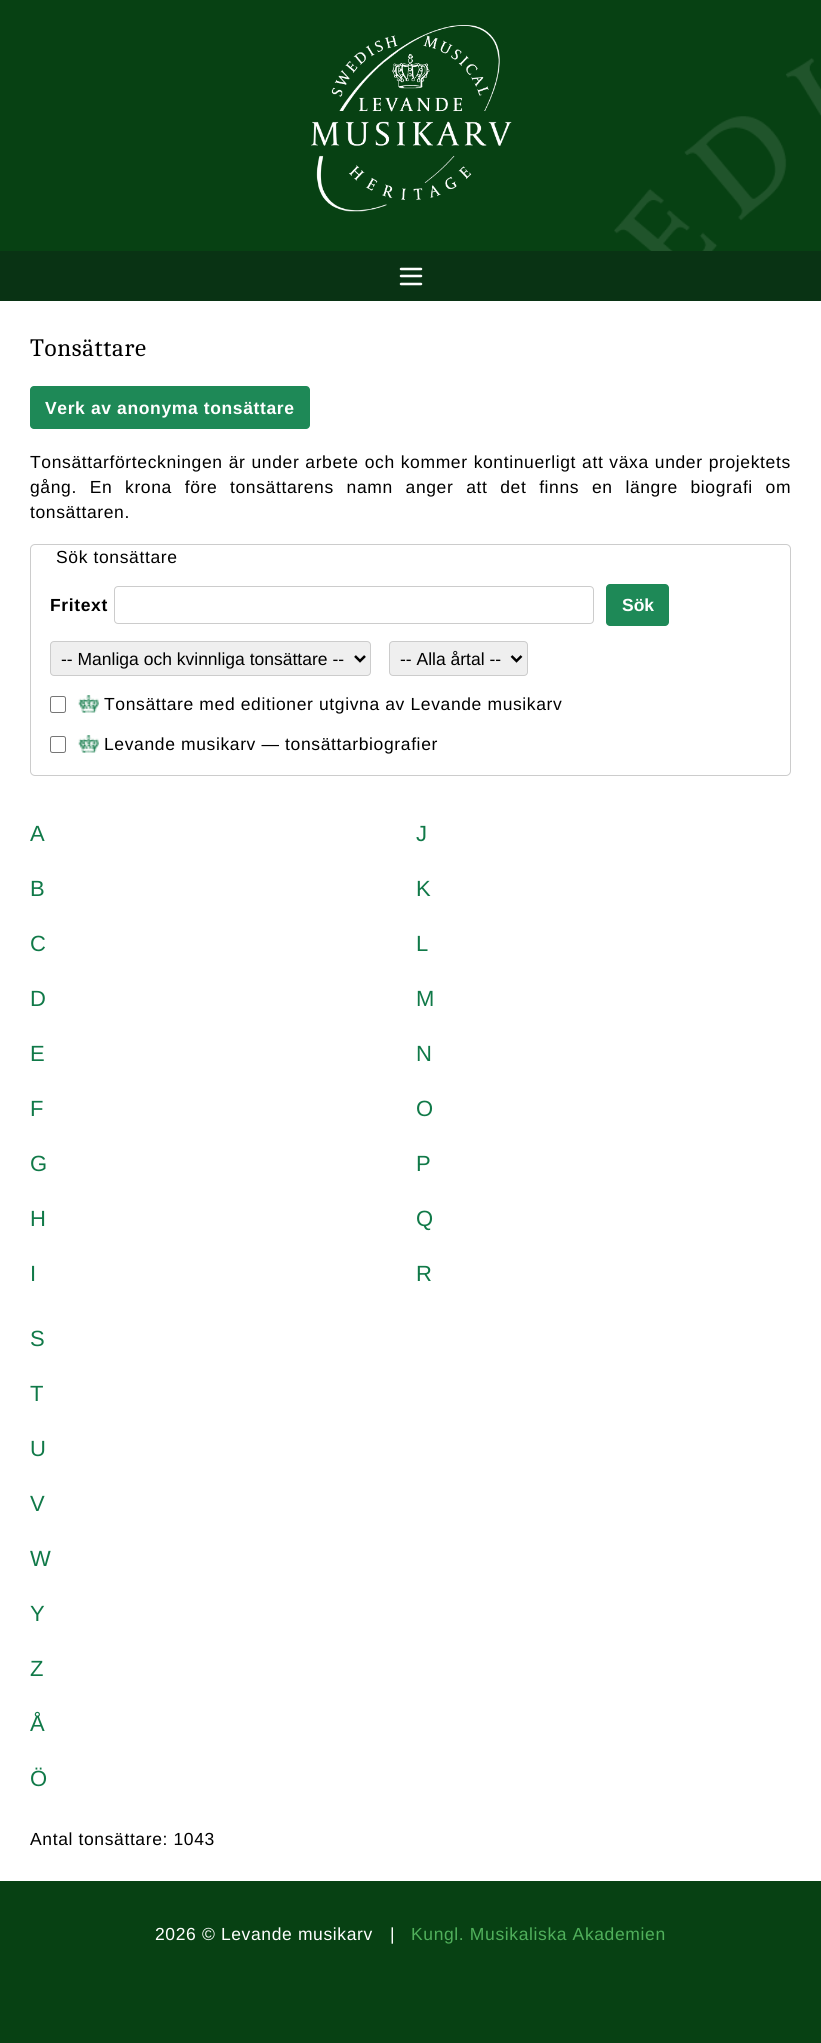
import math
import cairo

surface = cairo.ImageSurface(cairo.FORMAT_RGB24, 821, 2043)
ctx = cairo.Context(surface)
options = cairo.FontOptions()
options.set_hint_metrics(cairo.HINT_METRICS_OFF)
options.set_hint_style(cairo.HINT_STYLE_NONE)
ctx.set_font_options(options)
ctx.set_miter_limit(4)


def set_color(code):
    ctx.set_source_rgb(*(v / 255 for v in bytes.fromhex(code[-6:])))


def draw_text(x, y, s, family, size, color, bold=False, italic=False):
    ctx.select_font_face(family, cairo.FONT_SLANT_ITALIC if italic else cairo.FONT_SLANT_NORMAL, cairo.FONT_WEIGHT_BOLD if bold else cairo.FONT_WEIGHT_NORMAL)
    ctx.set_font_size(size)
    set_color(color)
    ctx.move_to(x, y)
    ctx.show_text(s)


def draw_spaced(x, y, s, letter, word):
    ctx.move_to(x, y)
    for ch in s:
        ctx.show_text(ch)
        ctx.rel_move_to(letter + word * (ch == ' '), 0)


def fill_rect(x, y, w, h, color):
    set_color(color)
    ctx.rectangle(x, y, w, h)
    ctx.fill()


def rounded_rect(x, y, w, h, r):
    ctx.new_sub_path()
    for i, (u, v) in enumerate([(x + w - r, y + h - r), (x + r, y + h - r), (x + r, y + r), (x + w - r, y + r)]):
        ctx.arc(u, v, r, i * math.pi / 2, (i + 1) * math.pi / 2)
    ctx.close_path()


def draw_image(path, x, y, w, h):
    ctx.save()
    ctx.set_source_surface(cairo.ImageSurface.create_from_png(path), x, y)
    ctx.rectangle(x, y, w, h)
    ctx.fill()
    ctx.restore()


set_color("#074113")
ctx.paint()
draw_image("assets/img1.png", 311, 25, 201, 187)
fill_rect(0, 251, 821, 50, "#093314")
ctx.new_path()
ctx.move_to(401, 269)
ctx.line_to(421, 269)
ctx.move_to(401, 276)
ctx.line_to(421, 276)
ctx.move_to(401, 284)
ctx.line_to(421, 284)
set_color("#ffffff")
ctx.set_line_width(2.5)
ctx.set_line_cap(cairo.LINE_CAP_ROUND)
ctx.set_line_join(cairo.LINE_JOIN_ROUND)
ctx.stroke()
draw_image("assets/img2.png", 614, 58, 207, 193)
fill_rect(0, 301, 821, 1580, "#ffffff")
ctx.select_font_face("Caladea")
ctx.set_font_size(25)
set_color("#000000")
draw_spaced(30, 356, "Tonsättare", 0.62, 0)
set_color("#1e8957")
rounded_rect(30, 386, 280, 43, 4)
ctx.fill()
ctx.select_font_face("Liberation Sans", cairo.FONT_SLANT_NORMAL, cairo.FONT_WEIGHT_BOLD)
ctx.set_font_size(17.5)
set_color("#ffffff")
draw_spaced(45, 414, "Verk av anonyma tonsättare", 0.62, 0)
ctx.select_font_face("Liberation Sans")
set_color("#000000")
draw_spaced(30, 468, "Tonsättarförteckningen är under arbete och kommer kontinuerligt att växa under projektets", 0.62, 0.5)
draw_spaced(30, 493, "gång. En krona före tonsättarens namn anger att det finns en längre biografi om", 0.62, 7.25)
draw_spaced(30, 518, "tonsättaren.", 0.62, 0)
rounded_rect(30.5, 544.5, 760, 231, 4.5)
set_color("#cccccc")
ctx.set_line_width(1)
ctx.set_line_cap(cairo.LINE_CAP_BUTT)
ctx.set_line_join(cairo.LINE_JOIN_MITER)
ctx.stroke()
set_color("#000000")
draw_spaced(56, 563, "Sök tonsättare", 0.62, 0)
ctx.select_font_face("Liberation Sans", cairo.FONT_SLANT_NORMAL, cairo.FONT_WEIGHT_BOLD)
draw_spaced(50, 611, "Fritext", 0.62, 0)
rounded_rect(114.5, 586.5, 479, 37, 3.5)
set_color("#cccccc")
ctx.stroke()
set_color("#1e8957")
rounded_rect(606, 584, 63, 42, 4)
ctx.fill()
draw_text(622, 611, "Sök", "Liberation Sans", 17.5, "#ffffff", bold=True)
set_color("#efefef")
rounded_rect(50.5, 641.5, 320, 34, 3.5)
ctx.fill_preserve()
set_color("#cccccc")
ctx.stroke()
ctx.new_path()
ctx.move_to(355, 656)
ctx.line_to(360, 661)
ctx.line_to(365, 656)
set_color("#000000")
ctx.set_line_width(2.5)
ctx.stroke()
draw_text(61, 665, "-- Manliga och kvinnliga tonsättare --", "Liberation Sans", 17.5, "#000000")
set_color("#efefef")
rounded_rect(389.5, 641.5, 138, 34, 3.5)
ctx.fill_preserve()
set_color("#cccccc")
ctx.set_line_width(1)
ctx.stroke()
ctx.new_path()
ctx.move_to(511.5, 656)
ctx.line_to(516.5, 661)
ctx.line_to(521.5, 656)
set_color("#000000")
ctx.set_line_width(2.5)
ctx.stroke()
draw_text(400, 665, "-- Alla årtal --", "Liberation Sans", 17.5, "#000000")
rounded_rect(50.5, 696.5, 15, 16, 2)
set_color("#767676")
ctx.set_line_width(1)
ctx.stroke()
draw_image("assets/img3.png", 78, 695, 21, 18)
set_color("#000000")
draw_spaced(104, 710, "Tonsättare med editioner utgivna av Levande musikarv", 0.62, 0)
rounded_rect(50.5, 736.5, 15, 16, 2)
set_color("#767676")
ctx.stroke()
draw_image("assets/img3.png", 78, 735, 21, 18)
set_color("#000000")
draw_spaced(104, 750, "Levande musikarv — tonsättarbiografier", 0.62, 0)
ctx.set_font_size(22)
set_color("#107948")
draw_spaced(30, 841, "A", 0.62, 0)
draw_spaced(30, 896, "B", 0.62, 0)
draw_spaced(30, 951, "C", 0.62, 0)
draw_spaced(30, 1006, "D", 0.62, 0)
draw_spaced(30, 1061, "E", 0.62, 0)
draw_spaced(30, 1116, "F", 0.62, 0)
draw_spaced(30, 1171, "G", 0.62, 0)
draw_spaced(30, 1226, "H", 0.62, 0)
draw_spaced(30, 1281, "I", 0.62, 0)
draw_spaced(416, 841, "J", 0.62, 0)
draw_spaced(416, 896, "K", 0.62, 0)
draw_spaced(416, 951, "L", 0.62, 0)
draw_spaced(416, 1006, "M", 0.62, 0)
draw_spaced(416, 1061, "N", 0.62, 0)
draw_spaced(416, 1116, "O", 0.62, 0)
draw_spaced(416, 1171, "P", 0.62, 0)
draw_spaced(416, 1226, "Q", 0.62, 0)
draw_spaced(416, 1281, "R", 0.62, 0)
draw_spaced(30, 1346, "S", 0.62, 0)
draw_spaced(30, 1401, "T", 0.62, 0)
draw_spaced(30, 1456, "U", 0.62, 0)
draw_spaced(30, 1511, "V", 0.62, 0)
draw_spaced(30, 1566, "W", 0.62, 0)
draw_spaced(30, 1621, "Y", 0.62, 0)
draw_spaced(30, 1676, "Z", 0.62, 0)
draw_spaced(30, 1731, "Å", 0.62, 0)
draw_spaced(30, 1786, "Ö", 0.62, 0)
ctx.set_font_size(17.5)
set_color("#000000")
draw_spaced(30, 1845, "Antal tonsättare: 1043", 0.62, 0)
set_color("#ffffff")
draw_spaced(155, 1940, "2026 © Levande musikarv", 0.62, 0)
draw_spaced(390, 1940, "|", 0.62, 0)
set_color("#50b05b")
draw_spaced(411, 1940, "Kungl. Musikaliska Akademien", 0.62, 0)
surface.write_to_png("output.png")
